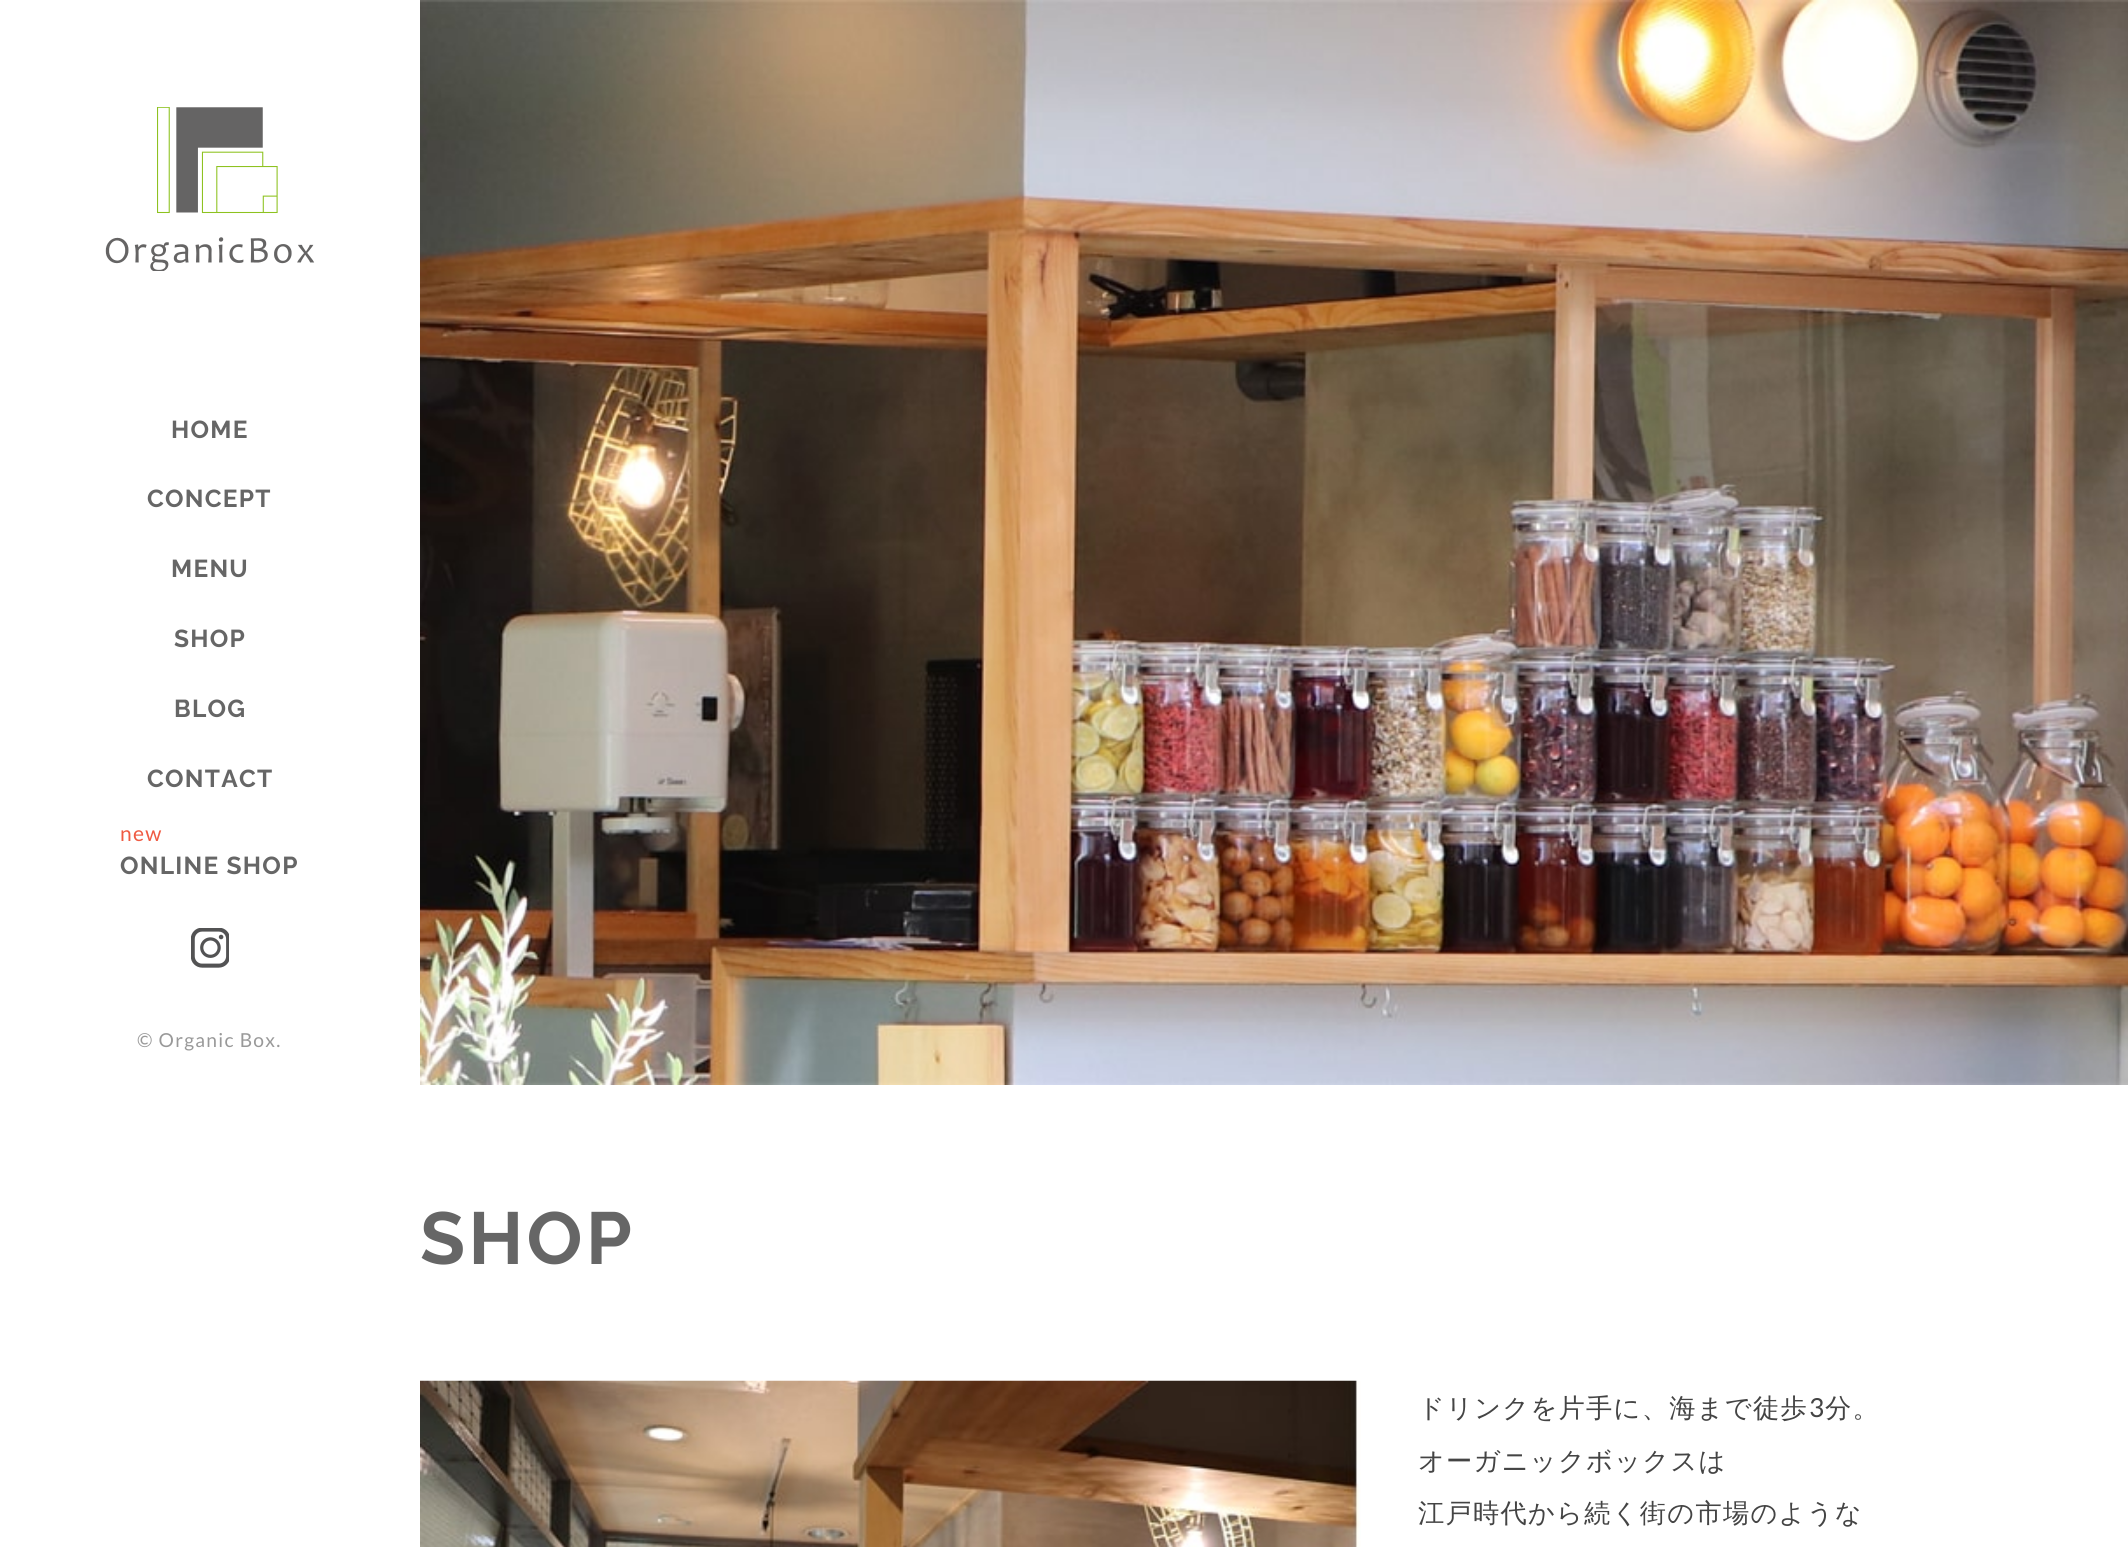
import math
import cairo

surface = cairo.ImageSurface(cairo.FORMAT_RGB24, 2128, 1547)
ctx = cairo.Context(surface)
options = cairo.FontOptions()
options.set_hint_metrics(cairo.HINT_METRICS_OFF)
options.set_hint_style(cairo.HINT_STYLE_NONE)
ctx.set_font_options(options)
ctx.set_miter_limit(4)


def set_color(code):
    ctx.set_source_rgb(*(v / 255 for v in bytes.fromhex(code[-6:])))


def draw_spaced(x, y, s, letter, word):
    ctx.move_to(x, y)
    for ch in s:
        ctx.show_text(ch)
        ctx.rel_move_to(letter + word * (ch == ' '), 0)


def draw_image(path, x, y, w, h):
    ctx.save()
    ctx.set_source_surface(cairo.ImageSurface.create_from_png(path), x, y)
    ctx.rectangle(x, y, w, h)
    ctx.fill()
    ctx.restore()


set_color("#ffffff")
ctx.paint()
draw_image("assets/img1.png", 105, 107, 210, 164)
ctx.select_font_face("Raleway", cairo.FONT_SLANT_NORMAL, cairo.FONT_WEIGHT_BOLD)
ctx.set_font_size(24.5)
set_color("#666666")
draw_spaced(171, 438, "HOME", 1.25, 0)
draw_spaced(147, 507, "CONCEPT", 1.25, 0)
draw_spaced(171, 577, "MENU", 1.25, 0)
draw_spaced(174, 647, "SHOP", 1.25, 0)
draw_spaced(174, 717, "BLOG", 1.25, 0)
draw_spaced(147, 787, "CONTACT", 1.25, 0)
ctx.select_font_face("Lato")
ctx.set_font_size(21)
set_color("#ef5a42")
draw_spaced(120, 841, "new", 1.25, 0)
ctx.select_font_face("Raleway", cairo.FONT_SLANT_NORMAL, cairo.FONT_WEIGHT_BOLD)
ctx.set_font_size(24.5)
set_color("#666666")
draw_spaced(120, 874, "ONLINE SHOP", 1.25, 0)
draw_image("assets/img2.png", 191, 928, 38, 40)
ctx.select_font_face("Lato")
ctx.set_font_size(19.25)
set_color("#999999")
draw_spaced(137, 1047, "© Organic Box.", 1.25, 0)
draw_image("assets/img3.png", 420, 0, 1708, 1085)
ctx.select_font_face("Raleway", cairo.FONT_SLANT_NORMAL, cairo.FONT_WEIGHT_BOLD)
ctx.set_font_size(73.5)
set_color("#666666")
draw_spaced(420, 1264, "SHOP", 3.5, 0)
draw_image("assets/img4.png", 420, 1380, 941, 167)
ctx.select_font_face("WenQuanYi Zen Hei Medium")
ctx.set_font_size(26.25)
set_color("#444444")
draw_spaced(1418, 1417, "ドリンクを片手に、海まで徒歩", 1.25, 0)
ctx.select_font_face("Lato")
draw_spaced(1809, 1417, "3", 1.25, 0)
ctx.select_font_face("WenQuanYi Zen Hei Medium")
draw_spaced(1825, 1417, "分。", 1.25, 0)
draw_spaced(1418, 1470, "オーガニックボックスは", 1.25, 0)
draw_spaced(1418, 1522, "江戸時代から続く街の市場のような", 1.25, 0)
surface.write_to_png("output.png")
